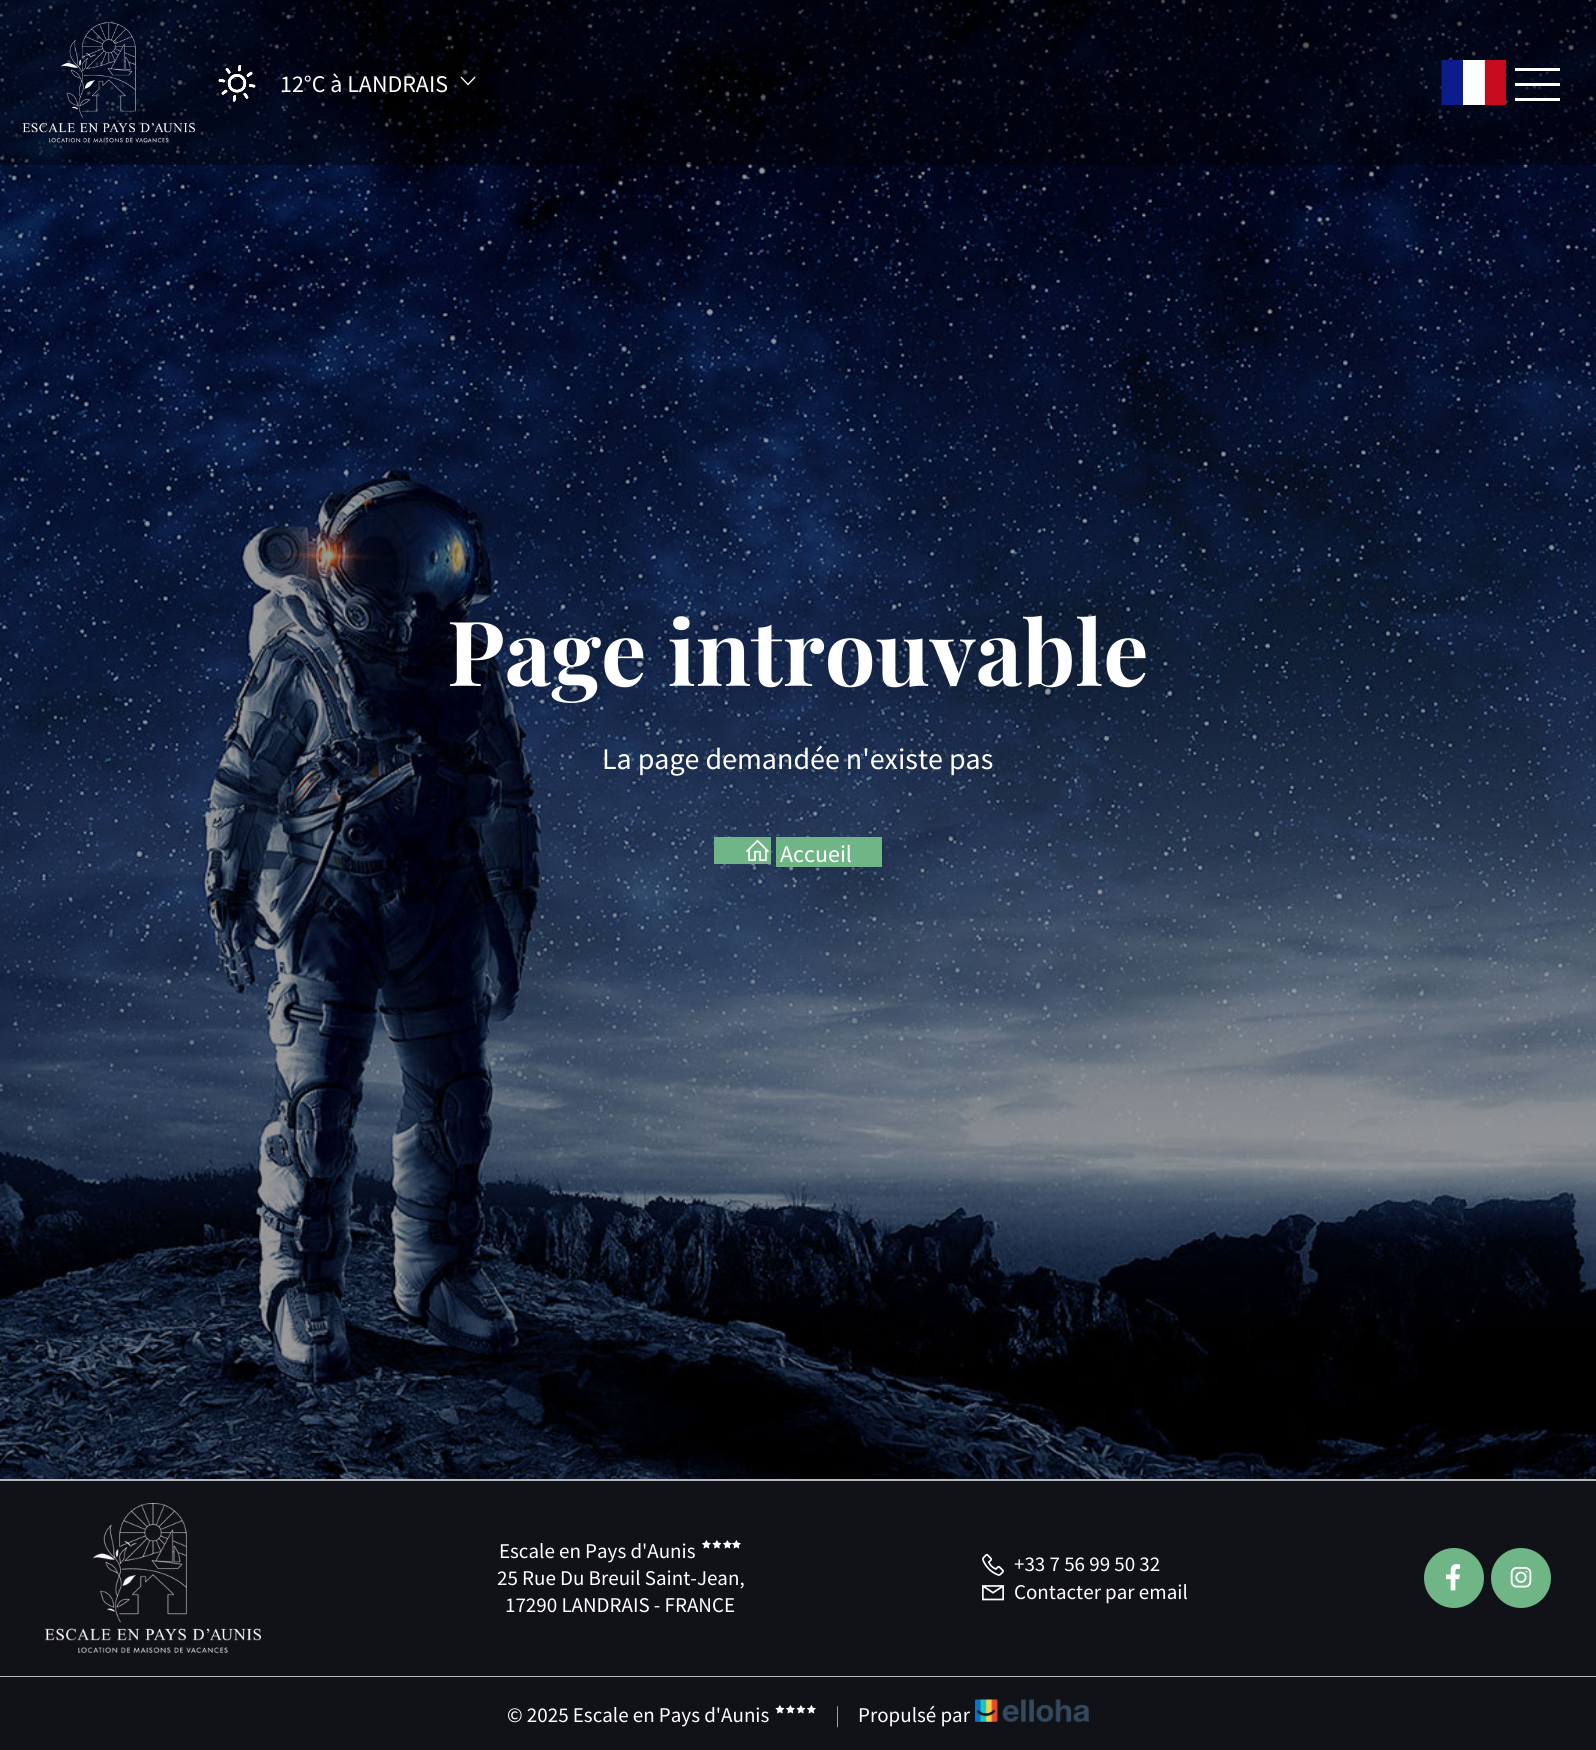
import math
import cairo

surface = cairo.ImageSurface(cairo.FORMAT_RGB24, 1596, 1750)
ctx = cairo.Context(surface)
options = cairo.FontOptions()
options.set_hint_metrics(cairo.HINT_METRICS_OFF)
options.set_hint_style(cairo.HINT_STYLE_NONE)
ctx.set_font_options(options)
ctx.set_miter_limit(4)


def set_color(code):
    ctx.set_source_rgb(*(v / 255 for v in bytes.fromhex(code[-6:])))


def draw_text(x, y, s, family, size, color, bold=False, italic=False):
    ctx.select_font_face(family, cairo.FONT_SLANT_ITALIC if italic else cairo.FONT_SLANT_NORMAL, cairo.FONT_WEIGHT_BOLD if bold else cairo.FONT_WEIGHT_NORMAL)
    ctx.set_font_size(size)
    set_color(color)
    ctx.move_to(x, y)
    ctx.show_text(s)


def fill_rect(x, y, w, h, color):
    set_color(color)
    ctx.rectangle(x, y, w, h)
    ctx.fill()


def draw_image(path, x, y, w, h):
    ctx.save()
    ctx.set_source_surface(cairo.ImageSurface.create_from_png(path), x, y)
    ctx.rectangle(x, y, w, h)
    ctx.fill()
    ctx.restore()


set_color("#ffffff")
ctx.paint()
draw_image("assets/img5.png", 0, 0, 1596, 1479)
ctx.set_source_rgba(0, 0, 0, 0.4)
ctx.rectangle(0, 0, 1596, 165)
ctx.fill()
draw_image("assets/img1.png", 22, 22, 173, 121)
draw_image("assets/img2.png", 218, 65, 38, 37)
draw_text(280, 92, "12°C à LANDRAIS", "Source Sans Pro", 24, "#ffffff")
draw_image("assets/img3.png", 460, 76, 16, 10)
draw_image("assets/img4.png", 1441, 60, 65, 45)
fill_rect(1515, 68, 45, 3, "#ffffff")
fill_rect(1515, 83, 45, 3, "#ffffff")
fill_rect(1515, 98, 45, 3, "#ffffff")
draw_text(447, 686, "Page introuvable", "Playfair Display", 90, "#ffffff", bold=True)
draw_text(602, 769, "La page demandée n'existe pas", "Source Sans Pro", 30, "#ffffff")
fill_rect(714, 837, 57, 27, "#6fb586")
fill_rect(776, 837, 106, 30, "#6fb586")
draw_image("assets/img6.png", 746, 839, 23, 22)
draw_text(780, 862, "Accueil", "Source Sans Pro", 24, "#ffffff")
fill_rect(0, 1481, 1596, 195, "#111118")
fill_rect(0, 1676, 1596, 1, "#b8b8ba")
fill_rect(0, 1479, 1596, 2, "#b8b8ba")
draw_image("assets/img7.png", 45, 1503, 216, 150)
draw_text(499, 1558, "Escale en Pays d'Aunis", "Source Sans Pro", 21, "#ffffff")
draw_image("assets/img8.png", 702, 1540, 9, 9)
draw_image("assets/img9.png", 712, 1540, 10, 9)
draw_image("assets/img8.png", 723, 1540, 9, 9)
draw_image("assets/img8.png", 732, 1540, 9, 9)
draw_text(497, 1585, "25 Rue Du Breuil Saint-Jean,", "Source Sans Pro", 21, "#ffffff")
draw_text(505, 1612, "17290 LANDRAIS - FRANCE", "Source Sans Pro", 21, "#ffffff")
draw_image("assets/img10.png", 982, 1553, 22, 23)
draw_text(1014, 1571, "+33 7 56 99 50 32", "Source Sans Pro", 21, "#ffffff")
draw_image("assets/img11.png", 982, 1585, 22, 16)
draw_text(1014, 1599, "Contacter par email", "Source Sans Pro", 21, "#ffffff")
set_color("#6fb586")
ctx.new_path()
ctx.arc(1454, 1578, 30, 0, 2 * math.pi)
ctx.fill()
draw_image("assets/img12.png", 1446, 1564, 15, 27)
ctx.arc(1521, 1578, 30, 0, 2 * math.pi)
ctx.fill()
draw_image("assets/img13.png", 1510, 1566, 22, 22)
fill_rect(0, 1677, 1596, 73, "#111118")
draw_text(507, 1722, "© 2025 Escale en Pays d'Aunis", "Source Sans Pro", 21, "#ffffff")
draw_image("assets/img9.png", 775, 1705, 10, 9)
draw_image("assets/img8.png", 786, 1705, 9, 9)
draw_image("assets/img9.png", 796, 1705, 10, 9)
draw_image("assets/img8.png", 807, 1705, 9, 9)
draw_text(835, 1722, "|", "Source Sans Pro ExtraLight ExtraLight", 21, "#ffffff")
draw_text(858, 1722, "Propulsé par", "Source Sans Pro", 21, "#ffffff")
draw_image("assets/img14.png", 975, 1699, 114, 23)
surface.write_to_png("output.png")
